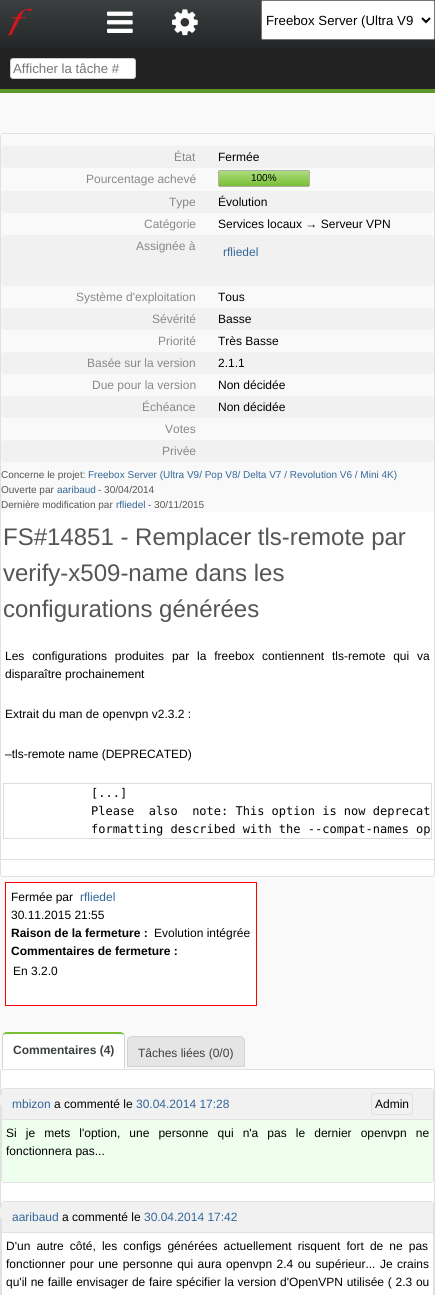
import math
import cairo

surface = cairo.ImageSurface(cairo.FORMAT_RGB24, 435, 1295)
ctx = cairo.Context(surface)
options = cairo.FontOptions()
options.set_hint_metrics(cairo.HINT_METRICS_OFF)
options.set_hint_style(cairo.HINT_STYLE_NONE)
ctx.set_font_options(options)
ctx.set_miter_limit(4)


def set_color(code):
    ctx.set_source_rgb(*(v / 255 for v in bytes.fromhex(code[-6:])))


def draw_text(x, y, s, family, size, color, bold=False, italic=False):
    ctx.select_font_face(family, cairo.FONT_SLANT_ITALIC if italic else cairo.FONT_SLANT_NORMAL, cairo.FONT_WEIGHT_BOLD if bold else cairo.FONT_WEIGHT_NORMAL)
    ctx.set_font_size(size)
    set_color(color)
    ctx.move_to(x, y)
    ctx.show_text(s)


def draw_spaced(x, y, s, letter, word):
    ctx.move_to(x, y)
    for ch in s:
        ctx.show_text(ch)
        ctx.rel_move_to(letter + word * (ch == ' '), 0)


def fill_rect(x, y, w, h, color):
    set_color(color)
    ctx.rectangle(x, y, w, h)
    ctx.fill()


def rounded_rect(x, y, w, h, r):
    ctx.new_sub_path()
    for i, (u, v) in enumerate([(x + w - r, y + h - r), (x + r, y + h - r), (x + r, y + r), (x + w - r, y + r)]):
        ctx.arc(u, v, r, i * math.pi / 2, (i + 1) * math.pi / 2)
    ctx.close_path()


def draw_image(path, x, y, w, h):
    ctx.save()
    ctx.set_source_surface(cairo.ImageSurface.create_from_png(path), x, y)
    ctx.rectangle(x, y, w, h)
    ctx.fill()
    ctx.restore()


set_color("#f9f9f9")
ctx.paint()
gradient = cairo.LinearGradient(218, 0, 218, 48)
gradient.add_color_stop_rgba(0, 0.235, 0.251, 0.255, 1)
gradient.add_color_stop_rgba(1, 0.141, 0.149, 0.153, 1)
ctx.set_source(gradient)
ctx.rectangle(0, 0, 435, 48)
ctx.fill()
draw_image("assets/img1.png", 8, 8, 24, 28)
draw_image("assets/img2.png", 172, 9, 26, 27)
fill_rect(0, 48, 435, 41, "#222222")
fill_rect(0, 89, 435, 4, "#5f9729")
draw_image("assets/img3.png", 107, 11, 26, 22)
set_color("#ffffff")
rounded_rect(261.5, 0.5, 173, 39, 1.5)
ctx.fill_preserve()
set_color("#767676")
ctx.set_line_width(1)
ctx.stroke()
ctx.new_path()
ctx.move_to(422, 18)
ctx.line_to(426, 22)
ctx.line_to(430, 18)
set_color("#000000")
ctx.set_line_width(2)
ctx.stroke()
draw_text(266, 25, "Freebox Server (Ultra V9", "Liberation Sans", 13.25, "#000000")
set_color("#ffffff")
rounded_rect(10.5, 58.5, 125, 20, 2.5)
ctx.fill_preserve()
set_color("#cccccc")
ctx.set_line_width(1)
ctx.stroke()
draw_text(13, 73, "Afficher la tâche #", "Liberation Sans", 13.25, "#757575")
set_color("#ffffff")
rounded_rect(0.5, 133.5, 434, 743, 2.5)
ctx.fill_preserve()
set_color("#e1e1e1")
ctx.stroke()
fill_rect(1, 134, 433, 378, "#f9f9f9")
set_color("#f1f1f1")
rounded_rect(1, 146, 433, 22, 4)
ctx.fill()
draw_text(174, 161, "État", "Liberation Sans", 12, "#888888")
draw_text(218, 161, "Fermée", "Liberation Sans", 12, "#000000")
draw_text(86, 183, "Pourcentage achevé", "Liberation Sans", 12, "#888888")
rounded_rect(218.5, 170.5, 91, 16, 1.5)
set_color("#aeaeae")
ctx.stroke()
gradient = cairo.LinearGradient(264, 171, 264, 186)
gradient.add_color_stop_rgba(0, 0.675, 0.863, 0.49, 1)
gradient.add_color_stop_rgba(1, 0.471, 0.749, 0.204, 1)
ctx.set_source(gradient)
ctx.rectangle(219, 171, 90, 15)
ctx.fill()
draw_text(251, 181, "100%", "Liberation Sans", 10, "#000000")
set_color("#f1f1f1")
rounded_rect(1, 191, 433, 22, 4)
ctx.fill()
draw_text(169, 206, "Type", "Liberation Sans", 12, "#888888")
draw_text(218, 206, "Évolution", "Liberation Sans", 12, "#000000")
draw_text(144, 228, "Catégorie", "Liberation Sans", 12, "#888888")
draw_text(218, 228, "Services locaux → Serveur VPN", "Liberation Sans", 12, "#000000")
set_color("#f1f1f1")
rounded_rect(1, 235, 433, 51, 4)
ctx.fill()
draw_text(136, 250, "Assignée à", "Liberation Sans", 12, "#888888")
draw_text(223, 256, "rfliedel", "Liberation Sans", 12, "#336699")
draw_text(76, 301, "Système d'exploitation", "Liberation Sans", 12, "#888888")
draw_text(218, 301, "Tous", "Liberation Sans", 12, "#000000")
set_color("#f1f1f1")
rounded_rect(1, 308, 433, 22, 4)
ctx.fill()
draw_text(152, 323, "Sévérité", "Liberation Sans", 12, "#888888")
draw_text(218, 323, "Basse", "Liberation Sans", 12, "#000000")
draw_text(158, 345, "Priorité", "Liberation Sans", 12, "#888888")
draw_text(218, 345, "Très Basse", "Liberation Sans", 12, "#000000")
set_color("#f1f1f1")
rounded_rect(1, 352, 433, 22, 4)
ctx.fill()
draw_text(87, 367, "Basée sur la version", "Liberation Sans", 12, "#888888")
draw_text(218, 367, "2.1.1", "Liberation Sans", 12, "#000000")
draw_text(92, 389, "Due pour la version", "Liberation Sans", 12, "#888888")
draw_text(218, 389, "Non décidée", "Liberation Sans", 12, "#000000")
set_color("#f1f1f1")
rounded_rect(1, 396, 433, 22, 4)
ctx.fill()
draw_text(142, 411, "Échéance", "Liberation Sans", 12, "#888888")
draw_text(218, 411, "Non décidée", "Liberation Sans", 12, "#000000")
draw_text(165, 433, "Votes", "Liberation Sans", 12, "#888888")
set_color("#f1f1f1")
rounded_rect(1, 440, 433, 22, 4)
ctx.fill()
draw_text(162, 455, "Privée", "Liberation Sans", 12, "#888888")
draw_text(1, 478, "Concerne le projet:", "Liberation Sans", 10, "#555555")
draw_text(88, 478, "Freebox Server (Ultra V9/ Pop V8/ Delta V7 / Revolution V6 / Mini 4K)", "Liberation Sans", 10, "#336699")
draw_text(1, 493, "Ouverte par", "Liberation Sans", 10, "#555555")
draw_text(57, 493, "aaribaud", "Liberation Sans", 10, "#336699")
draw_text(98, 493, "- 30/04/2014", "Liberation Sans", 10, "#555555")
draw_text(1, 508, "Dernière modification par", "Liberation Sans", 10, "#555555")
draw_text(116, 508, "rfliedel", "Liberation Sans", 10, "#336699")
draw_text(148, 508, "- 30/11/2015", "Liberation Sans", 10, "#555555")
draw_text(3, 545, "FS#14851 - Remplacer tls-remote par", "Liberation Sans", 24, "#555555")
draw_text(3, 581, "verify-x509-name dans les", "Liberation Sans", 24, "#555555")
draw_text(3, 617, "configurations générées", "Liberation Sans", 24, "#555555")
ctx.set_font_size(12)
set_color("#000000")
draw_spaced(5, 660, "Les configurations produites par la freebox contiennent tls-remote qui va", 0, 4.5)
draw_text(5, 678, "disparaître prochainement", "Liberation Sans", 12, "#000000")
draw_text(5, 718, "Extrait du man de openvpn v2.3.2 :", "Liberation Sans", 12, "#000000")
draw_text(5, 758, "–tls-remote name (DEPRECATED)", "Liberation Sans", 12, "#000000")
ctx.rectangle(3.5, 783.5, 428, 55)
set_color("#dddddd")
ctx.stroke()
draw_text(91, 797, "[...]", "DejaVu Sans Mono", 12, "#000000")
draw_text(91, 815, "Please  also  note: This option is now deprecat", "DejaVu Sans Mono", 12, "#000000")
draw_text(91, 833, "formatting described with the --compat-names op", "DejaVu Sans Mono", 12, "#000000")
fill_rect(1, 859, 433, 1, "#e1e1e1")
set_color("#ffffff")
ctx.rectangle(5.5, 882.5, 251, 123)
ctx.fill_preserve()
set_color("#ff0000")
ctx.stroke()
draw_text(11, 901, "Fermée par", "Liberation Sans", 12, "#000000")
draw_text(80, 901, "rfliedel", "Liberation Sans", 12, "#336699")
draw_text(11, 919, "30.11.2015 21:55", "Liberation Sans", 12, "#000000")
draw_text(11, 937, "Raison de la fermeture :", "Liberation Sans", 12, "#000000", bold=True)
draw_text(154, 937, "Evolution intégrée", "Liberation Sans", 12, "#000000")
draw_text(11, 955, "Commentaires de fermeture :", "Liberation Sans", 12, "#000000", bold=True)
draw_text(13, 975, "En 3.2.0", "Liberation Sans", 12, "#000000")
set_color("#ffffff")
ctx.new_path()
ctx.move_to(7, 1034)
ctx.line_to(120, 1034)
ctx.curve_to(122, 1034, 124, 1035, 124, 1037)
ctx.line_to(124, 1068)
ctx.line_to(3, 1068)
ctx.line_to(3, 1037)
ctx.curve_to(3, 1035, 5, 1034, 7, 1034)
ctx.close_path()
ctx.fill()
set_color("#78bf34")
ctx.new_path()
ctx.move_to(7, 1032)
ctx.curve_to(5, 1032, 4, 1033, 3, 1034)
ctx.line_to(4, 1035)
ctx.curve_to(4, 1034, 6, 1034, 7, 1034)
ctx.line_to(120, 1034)
ctx.curve_to(121, 1034, 123, 1034, 123, 1035)
ctx.line_to(124, 1034)
ctx.curve_to(123, 1033, 122, 1032, 120, 1032)
ctx.close_path()
ctx.fill()
set_color("#d4d4d4")
ctx.new_path()
ctx.move_to(125, 1069)
ctx.line_to(125, 1037)
ctx.curve_to(125, 1036, 124.5, 1034.5, 124, 1034)
ctx.line_to(123.5, 1035.5)
ctx.curve_to(124, 1035.5, 124, 1036.5, 124, 1037)
ctx.line_to(124, 1068)
ctx.close_path()
ctx.fill()
set_color("#ffffff")
ctx.new_path()
ctx.move_to(125, 1069)
ctx.line_to(124, 1068)
ctx.line_to(3, 1068)
ctx.line_to(2, 1069)
ctx.close_path()
ctx.fill()
set_color("#d4d4d4")
ctx.new_path()
ctx.move_to(2, 1069)
ctx.line_to(3, 1068)
ctx.line_to(3, 1037)
ctx.curve_to(3, 1036.5, 3, 1035.5, 3.5, 1035.5)
ctx.line_to(3, 1034)
ctx.curve_to(2.5, 1034.5, 2, 1036, 2, 1037)
ctx.close_path()
ctx.fill()
draw_text(13, 1054, "Commentaires (4)", "Liberation Sans", 12, "#3c4041", bold=True)
set_color("#e5e5e5")
ctx.new_path()
ctx.move_to(132, 1036.5)
ctx.line_to(240, 1036.5)
ctx.curve_to(242.5, 1036.5, 244.5, 1038.5, 244.5, 1041)
ctx.line_to(244.5, 1066.5)
ctx.line_to(127.5, 1066.5)
ctx.line_to(127.5, 1041)
ctx.curve_to(127.5, 1038.5, 129.5, 1036.5, 132, 1036.5)
ctx.close_path()
ctx.fill_preserve()
set_color("#d4d4d4")
ctx.stroke()
draw_text(138, 1057, "Tâches liées (0/0)", "Liberation Sans", 12, "#3c4041")
set_color("#ffffff")
rounded_rect(0.5, 1069.5, 434, 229, 2.5)
ctx.fill_preserve()
set_color("#e1e1e1")
ctx.stroke()
rounded_rect(1.5, 1088.5, 432, 94, 2.5)
ctx.stroke()
set_color("#f1f1f1")
ctx.new_path()
ctx.move_to(2, 1094)
ctx.line_to(2, 1106)
ctx.line_to(-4, 1100)
ctx.close_path()
ctx.fill()
fill_rect(2, 1089, 431, 30, "#f1f1f1")
fill_rect(2, 1119, 431, 1, "#e1e1e1")
draw_text(12, 1108, "mbizon", "Liberation Sans", 12, "#336699")
draw_text(54, 1108, "a commenté le", "Liberation Sans", 12, "#000000")
draw_text(136, 1108, "30.04.2014 17:28", "Liberation Sans", 12, "#336699")
rounded_rect(371.5, 1093.5, 41, 21, 2.5)
set_color("#e1e1e1")
ctx.stroke()
draw_text(375, 1108, "Admin", "Liberation Sans", 12, "#000000")
fill_rect(2, 1120, 431, 62, "#eeffee")
set_color("#000000")
draw_spaced(6, 1137, "Si je mets l'option, une personne qui n'a pas le dernier openvpn ne", 0, 5.75)
draw_text(6, 1155, "fonctionnera pas...", "Liberation Sans", 12, "#000000")
rounded_rect(1.5, 1201.5, 432, 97, 2.5)
set_color("#e1e1e1")
ctx.stroke()
set_color("#f1f1f1")
ctx.new_path()
ctx.move_to(2, 1207)
ctx.line_to(2, 1219)
ctx.line_to(-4, 1213)
ctx.close_path()
ctx.fill()
fill_rect(2, 1202, 431, 30, "#f1f1f1")
fill_rect(2, 1232, 431, 1, "#e1e1e1")
draw_text(12, 1221, "aaribaud", "Liberation Sans", 12, "#336699")
draw_text(62, 1221, "a commenté le", "Liberation Sans", 12, "#000000")
draw_text(144, 1221, "30.04.2014 17:42", "Liberation Sans", 12, "#336699")
set_color("#000000")
draw_spaced(6, 1250, "D'un autre côté, les configs générées actuellement risquent fort de ne pas", 0, 2.75)
draw_spaced(6, 1268, "fonctionner pour une personne qui aura openvpn 2.4 ou supérieur... Je crains", 0, 1.1)
draw_spaced(6, 1286, "qu'il ne faille envisager de faire spécifier la version d'OpenVPN utilisée ( 2.3 ou", 0, 0.4)
surface.write_to_png("output.png")
